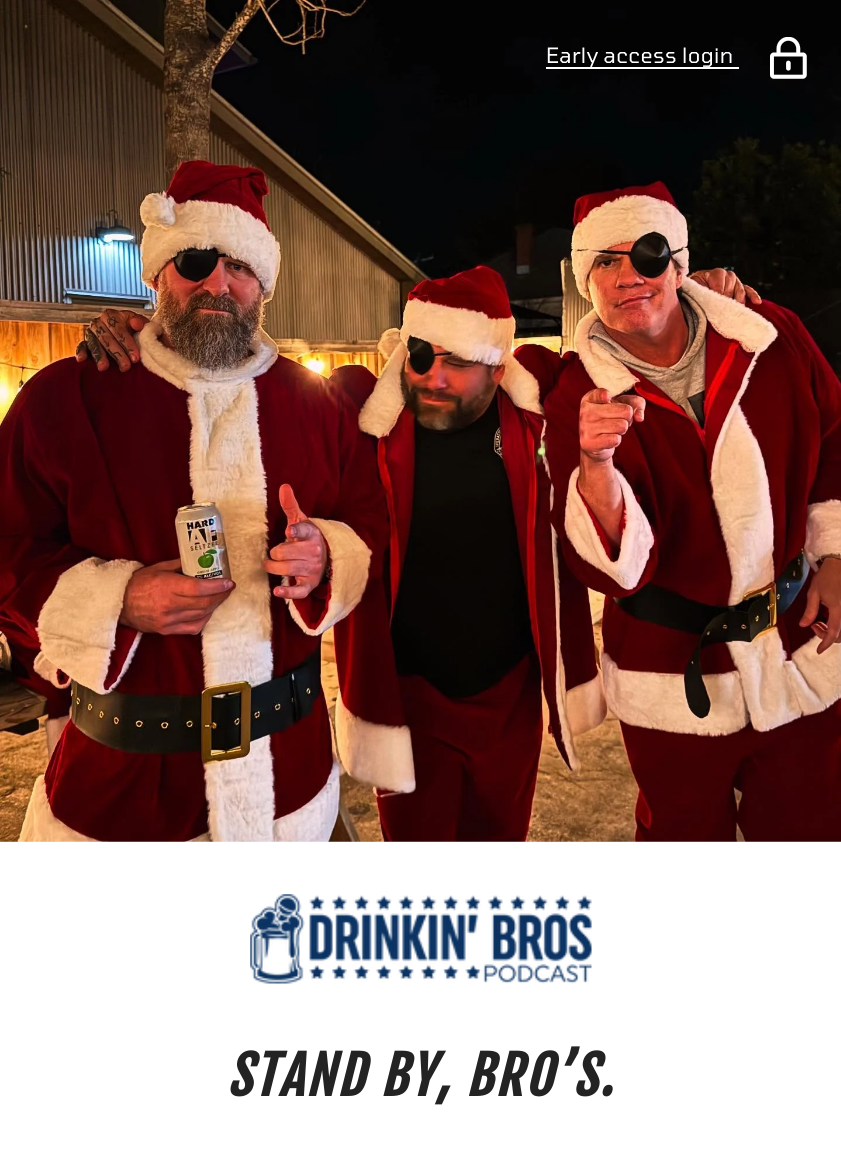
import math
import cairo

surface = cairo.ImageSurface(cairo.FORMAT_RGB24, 841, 1157)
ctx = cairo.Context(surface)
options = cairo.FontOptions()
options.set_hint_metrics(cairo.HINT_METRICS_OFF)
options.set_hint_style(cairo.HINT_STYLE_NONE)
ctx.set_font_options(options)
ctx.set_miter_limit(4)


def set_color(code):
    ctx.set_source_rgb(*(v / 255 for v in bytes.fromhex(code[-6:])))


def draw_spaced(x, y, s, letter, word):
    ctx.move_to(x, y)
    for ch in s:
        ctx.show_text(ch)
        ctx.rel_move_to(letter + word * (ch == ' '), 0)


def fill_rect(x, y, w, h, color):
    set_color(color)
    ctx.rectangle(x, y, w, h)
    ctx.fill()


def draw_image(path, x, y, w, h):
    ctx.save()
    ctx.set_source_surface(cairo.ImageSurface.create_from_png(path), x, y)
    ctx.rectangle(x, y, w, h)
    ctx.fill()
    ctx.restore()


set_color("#ffffff")
ctx.paint()
draw_image("assets/img1.png", 0, 0, 841, 842)
ctx.select_font_face("Tomorrow")
ctx.set_font_size(21)
set_color("#ffffff")
draw_spaced(546, 63, "Early access login", 0.4, 0)
fill_rect(546, 67, 193, 2, "#ffffff")
draw_image("assets/img2.png", 770, 37, 37, 42)
draw_image("assets/img3.png", 250, 894, 342, 90)
ctx.select_font_face("Fjalla One", cairo.FONT_SLANT_ITALIC, cairo.FONT_WEIGHT_BOLD)
ctx.set_font_size(52.5)
set_color("#232323")
draw_spaced(227, 1096, "STAND BY, BRO’S.", 2.6, 0)
surface.write_to_png("output.png")
